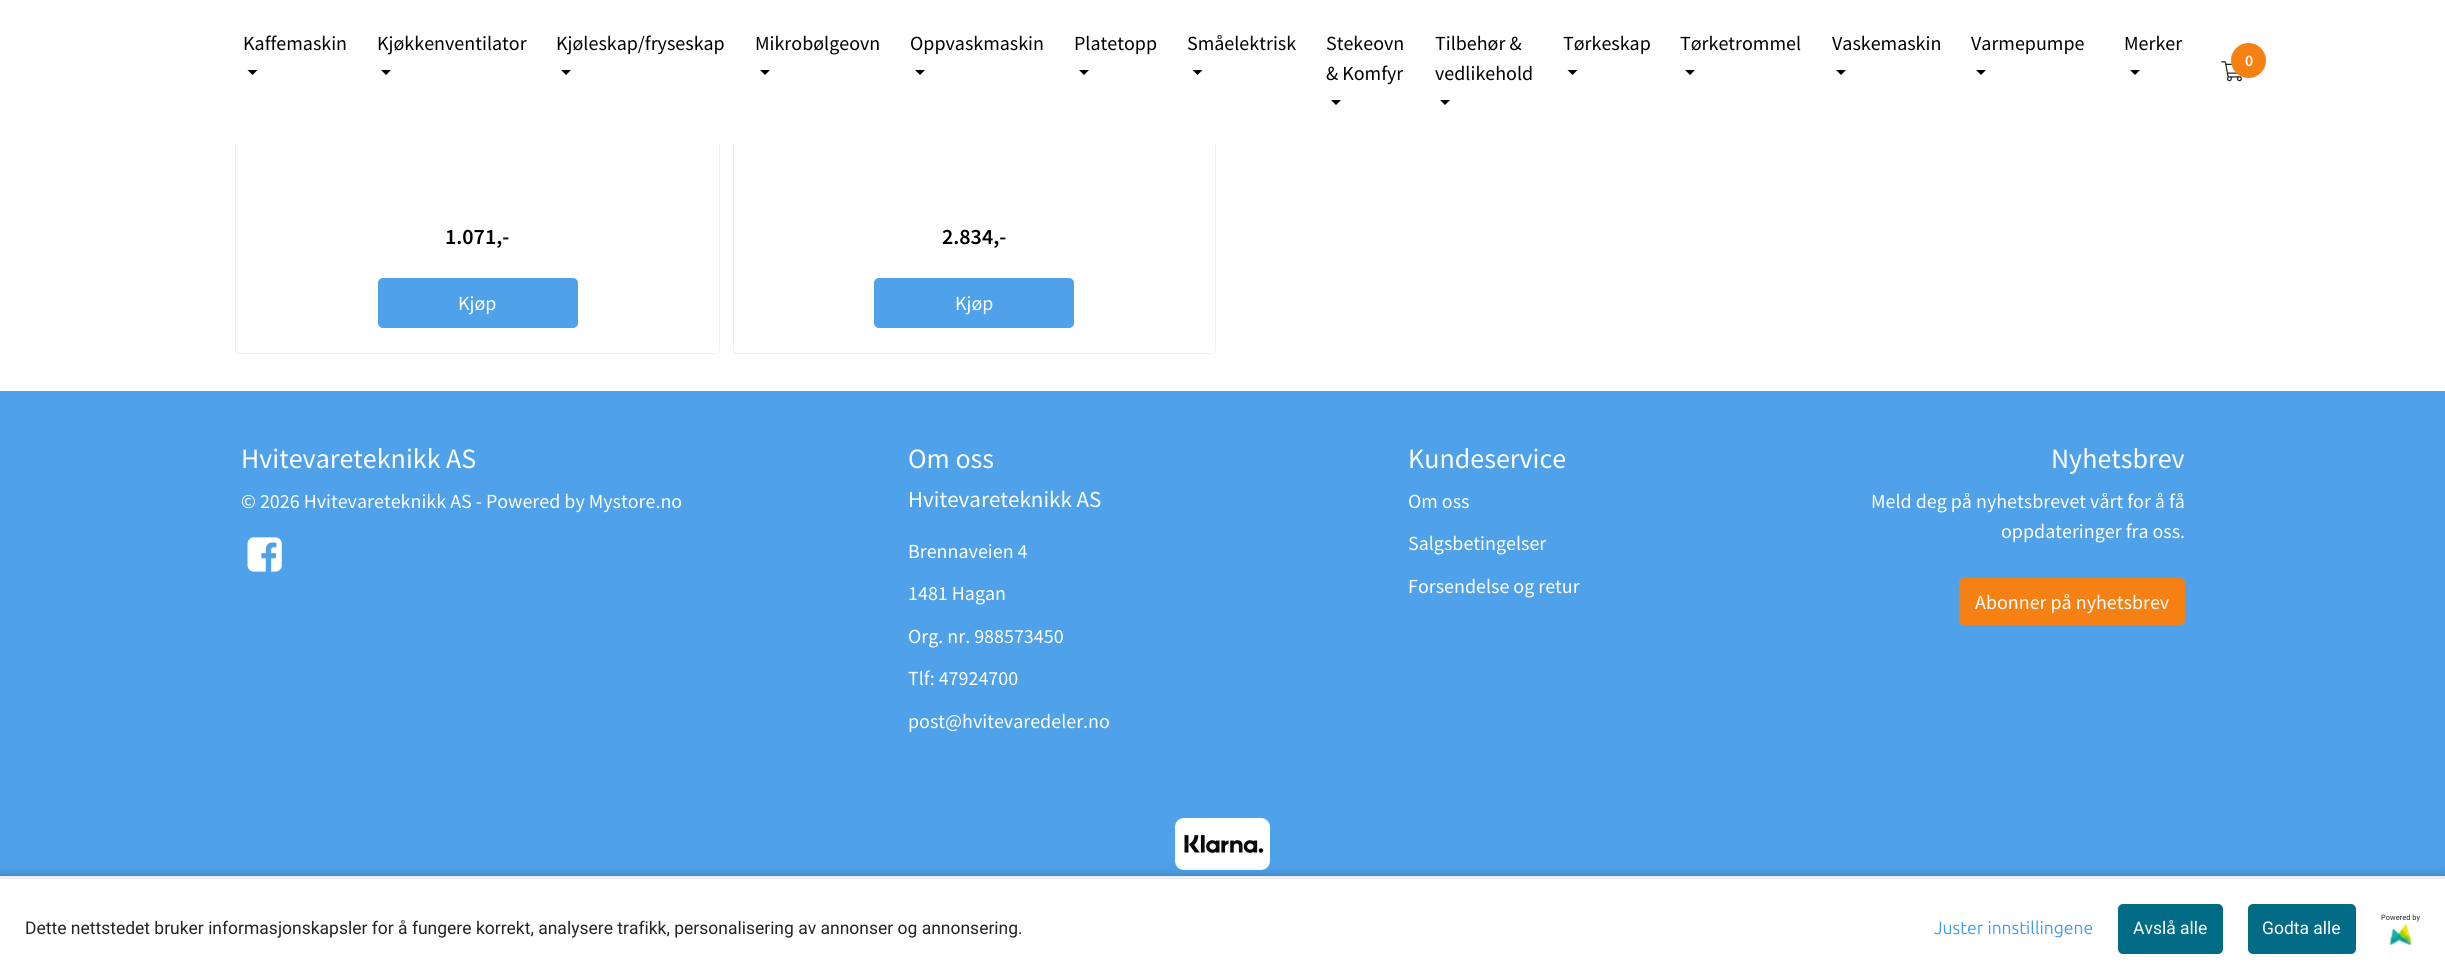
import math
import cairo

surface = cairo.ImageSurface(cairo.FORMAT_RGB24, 2445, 978)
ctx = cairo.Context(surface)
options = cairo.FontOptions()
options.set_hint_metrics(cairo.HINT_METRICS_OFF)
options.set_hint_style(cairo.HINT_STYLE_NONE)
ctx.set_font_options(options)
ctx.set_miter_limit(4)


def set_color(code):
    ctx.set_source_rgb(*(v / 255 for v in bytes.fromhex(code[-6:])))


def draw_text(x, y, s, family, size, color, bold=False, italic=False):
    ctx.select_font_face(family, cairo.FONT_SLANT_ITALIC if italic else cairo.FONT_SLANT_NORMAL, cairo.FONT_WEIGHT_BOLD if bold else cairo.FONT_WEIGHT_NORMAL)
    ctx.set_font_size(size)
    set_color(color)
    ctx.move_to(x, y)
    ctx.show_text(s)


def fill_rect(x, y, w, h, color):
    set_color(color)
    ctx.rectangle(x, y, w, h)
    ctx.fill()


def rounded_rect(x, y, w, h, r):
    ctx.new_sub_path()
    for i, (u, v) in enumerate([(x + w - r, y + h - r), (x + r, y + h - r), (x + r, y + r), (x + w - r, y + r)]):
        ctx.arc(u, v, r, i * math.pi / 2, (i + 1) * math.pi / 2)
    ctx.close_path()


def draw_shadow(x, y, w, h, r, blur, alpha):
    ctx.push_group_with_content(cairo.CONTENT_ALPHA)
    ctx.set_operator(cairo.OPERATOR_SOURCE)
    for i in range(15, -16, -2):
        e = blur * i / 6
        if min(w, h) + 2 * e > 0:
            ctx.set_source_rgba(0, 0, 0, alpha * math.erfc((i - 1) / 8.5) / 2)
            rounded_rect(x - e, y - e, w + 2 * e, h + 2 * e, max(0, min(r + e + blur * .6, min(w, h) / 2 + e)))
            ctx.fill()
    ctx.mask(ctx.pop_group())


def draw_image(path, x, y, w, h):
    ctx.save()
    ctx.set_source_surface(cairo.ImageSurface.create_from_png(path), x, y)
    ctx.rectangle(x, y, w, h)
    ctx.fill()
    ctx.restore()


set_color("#ffffff")
ctx.paint()
rounded_rect(235.5, -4.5, 484, 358, 3.5)
set_color("#f0f0f0")
ctx.set_line_width(1)
ctx.stroke()
rounded_rect(733.5, -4.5, 482, 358, 3.5)
ctx.stroke()
fill_rect(235, 0, 981, 144, "#ffffff")
draw_text(243, 50, "Kaffemaskin", "Source Sans Pro", 20, "#000000")
ctx.new_path()
ctx.move_to(247.5, 70)
ctx.line_to(257.5, 70)
ctx.line_to(252.5, 75)
ctx.close_path()
ctx.fill()
draw_text(377, 50, "Kjøkkenventilator", "Source Sans Pro", 20, "#000000")
ctx.new_path()
ctx.move_to(381, 70)
ctx.line_to(391, 70)
ctx.line_to(386, 75)
ctx.close_path()
ctx.fill()
draw_text(556, 50, "Kjøleskap/fryseskap", "Source Sans Pro", 20, "#000000")
ctx.new_path()
ctx.move_to(561, 70)
ctx.line_to(571, 70)
ctx.line_to(566, 75)
ctx.close_path()
ctx.fill()
draw_text(755, 50, "Mikrobølgeovn", "Source Sans Pro", 20, "#000000")
ctx.new_path()
ctx.move_to(760, 70)
ctx.line_to(770, 70)
ctx.line_to(765, 75)
ctx.close_path()
ctx.fill()
draw_text(910, 50, "Oppvaskmaskin", "Source Sans Pro", 20, "#000000")
ctx.new_path()
ctx.move_to(915, 70)
ctx.line_to(925, 70)
ctx.line_to(920, 75)
ctx.close_path()
ctx.fill()
draw_text(1074, 50, "Platetopp", "Source Sans Pro", 20, "#000000")
ctx.new_path()
ctx.move_to(1079, 70)
ctx.line_to(1089, 70)
ctx.line_to(1084, 75)
ctx.close_path()
ctx.fill()
draw_text(1187, 50, "Småelektrisk", "Source Sans Pro", 20, "#000000")
ctx.new_path()
ctx.move_to(1192.5, 70)
ctx.line_to(1202.5, 70)
ctx.line_to(1197.5, 75)
ctx.close_path()
ctx.fill()
draw_text(1326, 50, "Stekeovn", "Source Sans Pro", 20, "#000000")
draw_text(1326, 80, "& Komfyr", "Source Sans Pro", 20, "#000000")
ctx.new_path()
ctx.move_to(1331, 100)
ctx.line_to(1341, 100)
ctx.line_to(1336, 105)
ctx.close_path()
ctx.fill()
draw_text(1435, 50, "Tilbehør &", "Source Sans Pro", 20, "#000000")
draw_text(1435, 80, "vedlikehold", "Source Sans Pro", 20, "#000000")
ctx.new_path()
ctx.move_to(1440, 100)
ctx.line_to(1450, 100)
ctx.line_to(1445, 105)
ctx.close_path()
ctx.fill()
draw_text(1563, 50, "Tørkeskap", "Source Sans Pro", 20, "#000000")
ctx.new_path()
ctx.move_to(1567.5, 70)
ctx.line_to(1577.5, 70)
ctx.line_to(1572.5, 75)
ctx.close_path()
ctx.fill()
draw_text(1680, 50, "Tørketrommel", "Source Sans Pro", 20, "#000000")
ctx.new_path()
ctx.move_to(1685, 70)
ctx.line_to(1695, 70)
ctx.line_to(1690, 75)
ctx.close_path()
ctx.fill()
draw_text(1832, 50, "Vaskemaskin", "Source Sans Pro", 20, "#000000")
ctx.new_path()
ctx.move_to(1836, 70)
ctx.line_to(1846, 70)
ctx.line_to(1841, 75)
ctx.close_path()
ctx.fill()
draw_text(1971, 50, "Varmepumpe", "Source Sans Pro", 20, "#000000")
ctx.new_path()
ctx.move_to(1976, 70)
ctx.line_to(1986, 70)
ctx.line_to(1981, 75)
ctx.close_path()
ctx.fill()
draw_text(2124, 50, "Merker", "Source Sans Pro", 20, "#000000")
ctx.new_path()
ctx.move_to(2130, 70)
ctx.line_to(2140, 70)
ctx.line_to(2135, 75)
ctx.close_path()
ctx.fill()
draw_image("assets/img1.png", 2221, 61, 21, 21)
set_color("#f58115")
ctx.arc(2248.5, 60.5, 16, 0, 2 * math.pi)
ctx.fill_preserve()
ctx.set_line_width(3)
ctx.stroke()
draw_text(2245, 66, "0", "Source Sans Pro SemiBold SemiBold", 16, "#ffffff")
draw_text(445, 244, "1.071,-", "Source Sans Pro SemiBold SemiBold", 22, "#000000")
set_color("#4fa1e9")
rounded_rect(378.5, 278.5, 199, 49, 4.5)
ctx.fill_preserve()
ctx.set_line_width(1)
ctx.stroke()
draw_text(458, 310, "Kjøp", "Source Sans Pro", 20, "#ffffff")
draw_text(942, 244, "2.834,-", "Source Sans Pro SemiBold SemiBold", 22, "#000000")
set_color("#4fa1e9")
rounded_rect(874.5, 278.5, 199, 49, 4.5)
ctx.fill_preserve()
ctx.stroke()
draw_text(955, 310, "Kjøp", "Source Sans Pro", 20, "#ffffff")
fill_rect(0, 391, 2445, 485, "#4fa1e9")
draw_text(241, 468, "Hvitevareteknikk AS", "Source Sans Pro", 28, "#ffffff")
draw_text(241, 508, "© 2026 Hvitevareteknikk AS - Powered by Mystore.no", "Source Sans Pro", 20, "#ffffff")
draw_image("assets/img2.png", 247, 537, 35, 35)
draw_text(908, 468, "Om oss", "Source Sans Pro", 28, "#ffffff")
draw_text(908, 507, "Hvitevareteknikk AS", "Source Sans Pro", 23, "#ffffff")
draw_text(908, 558, "Brennaveien 4", "Source Sans Pro", 20, "#ffffff")
draw_text(908, 600, "1481 Hagan", "Source Sans Pro", 20, "#ffffff")
draw_text(908, 643, "Org. nr. 988573450", "Source Sans Pro", 20, "#ffffff")
draw_text(908, 685, "Tlf: 47924700", "Source Sans Pro", 20, "#ffffff")
draw_text(908, 728, "post@hvitevaredeler.no", "Source Sans Pro", 20, "#ffffff")
draw_text(1408, 468, "Kundeservice", "Source Sans Pro", 28, "#ffffff")
draw_text(1408, 508, "Om oss", "Source Sans Pro", 20, "#ffffff")
draw_text(1408, 550, "Salgsbetingelser", "Source Sans Pro", 20, "#ffffff")
draw_text(1408, 593, "Forsendelse og retur", "Source Sans Pro", 20, "#ffffff")
draw_text(2051, 468, "Nyhetsbrev", "Source Sans Pro", 28, "#ffffff")
draw_text(1871, 508, "Meld deg på nyhetsbrevet vårt for å få", "Source Sans Pro", 20, "#ffffff")
draw_text(2001, 538, "oppdateringer fra oss.", "Source Sans Pro", 20, "#ffffff")
set_color("#f58115")
rounded_rect(1959.5, 578.5, 225, 46, 4.5)
ctx.fill_preserve()
ctx.stroke()
draw_text(1975, 609, "Abonner på nyhetsbrev", "Source Sans Pro", 20, "#ffffff")
draw_image("assets/img3.png", 1175, 818, 95, 52)
set_color("#000000")
draw_shadow(0, 876, 2445, 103, 0, 6, 0.25)
fill_rect(0, 879, 2445, 99, "#ffffff")
fill_rect(0, 876, 2445, 3, "#eeeeee")
draw_text(25, 934, "Dette nettstedet bruker informasjonskapsler for å fungere korrekt, analysere trafikk, personalisering av annonser og annonsering.", "Roboto", 17.5, "#212529")
draw_text(1934, 934, "Juster innstillingene", "Ubuntu", 17.5, "#409aef")
draw_text(2381, 920, "Powered by", "Roboto", 7.5, "#212529")
draw_image("assets/img4.png", 2389, 923, 23, 23)
set_color("#026b85")
rounded_rect(2118, 904, 105, 50, 5)
ctx.fill()
draw_text(2133, 934, "Avslå alle", "Roboto", 17.5, "#ffffff")
set_color("#026b85")
rounded_rect(2248, 904, 108, 50, 5)
ctx.fill()
draw_text(2262, 934, "Godta alle", "Roboto", 17.5, "#ffffff")
surface.write_to_png("output.png")
